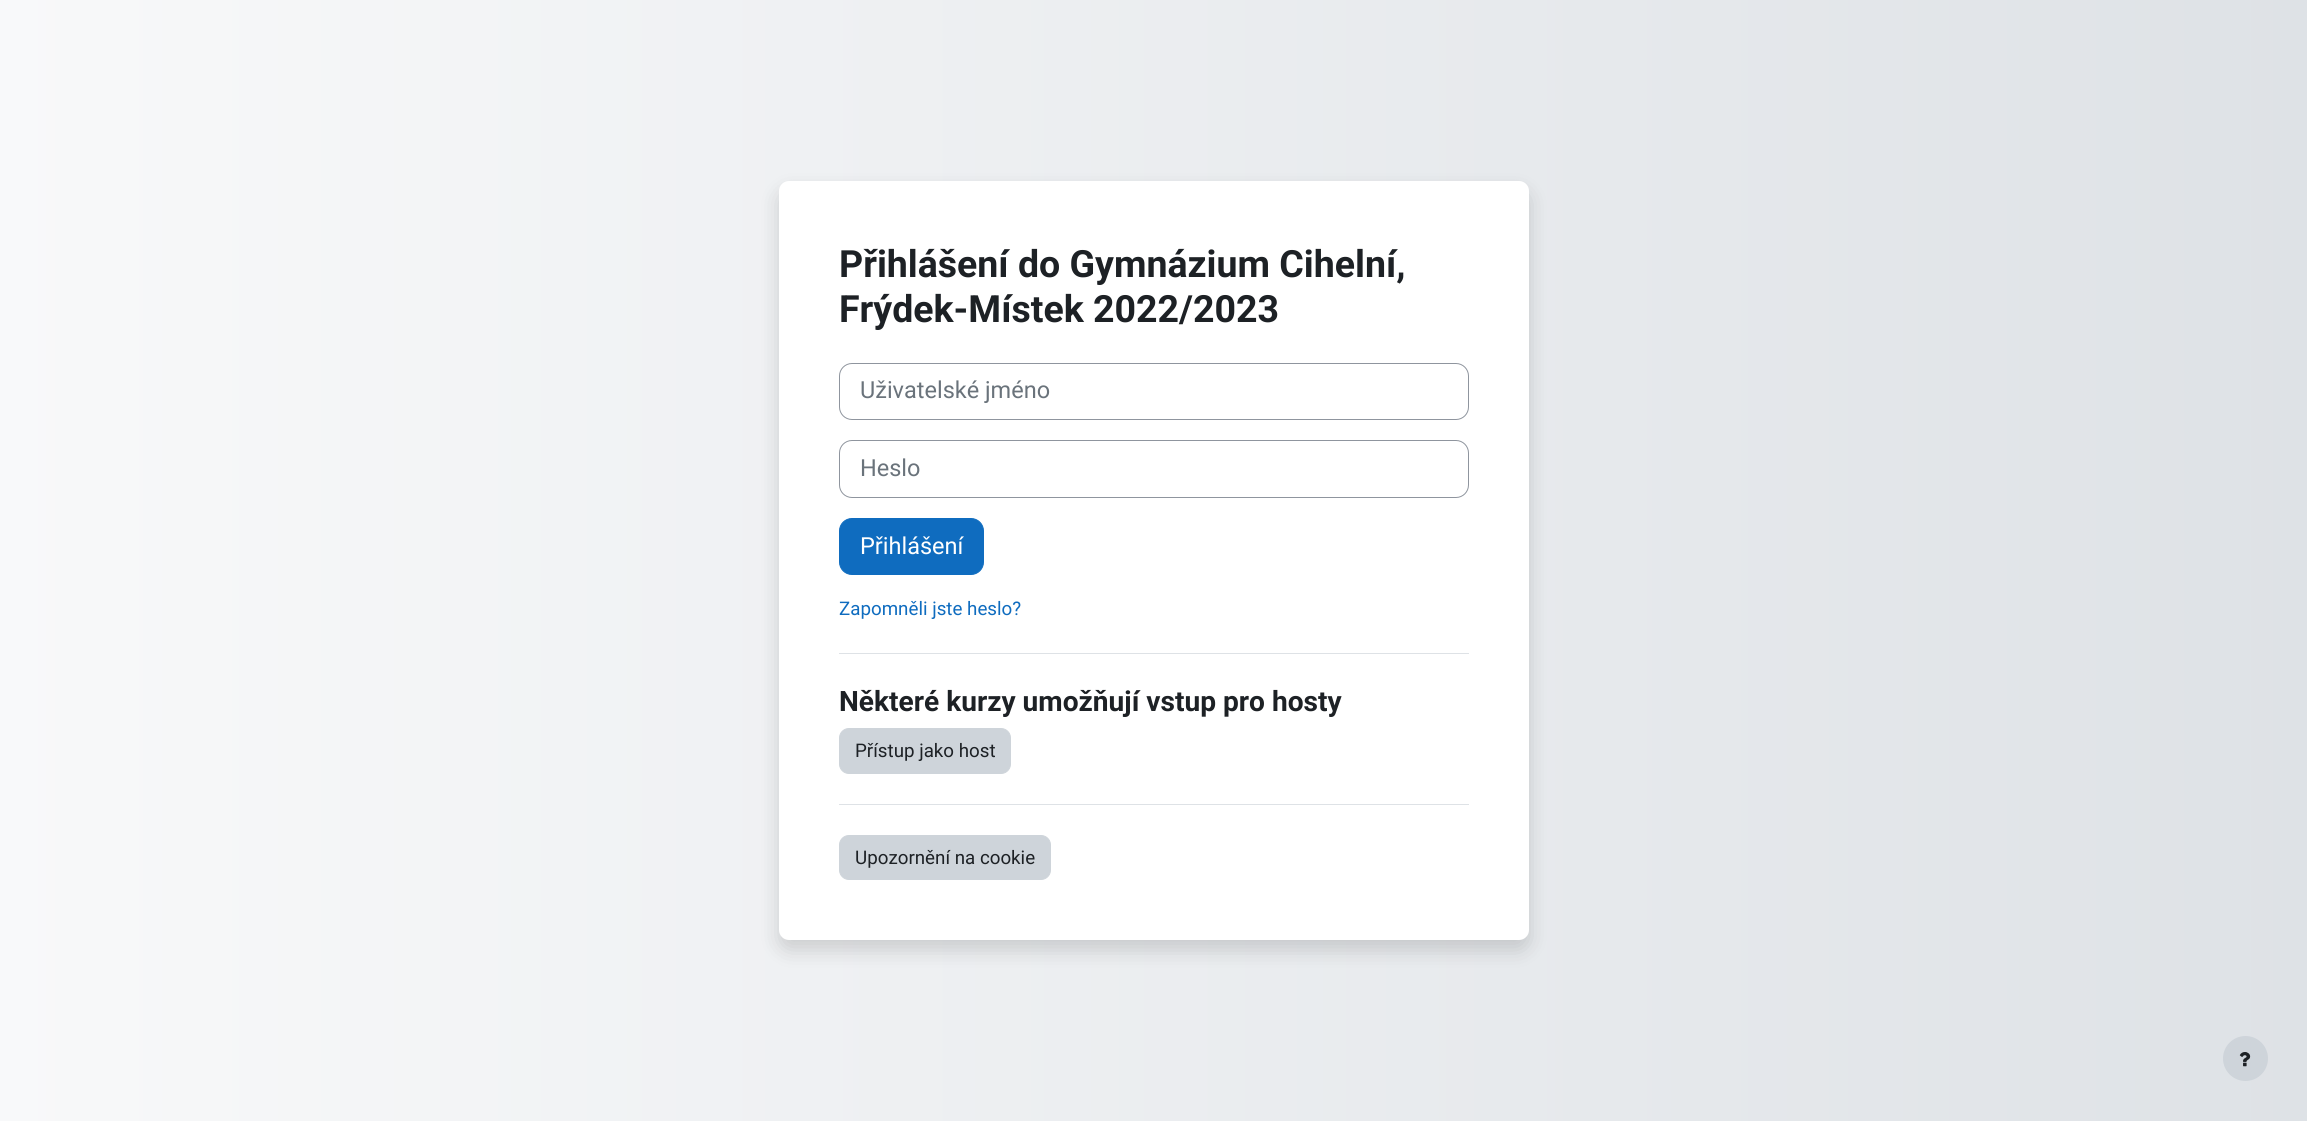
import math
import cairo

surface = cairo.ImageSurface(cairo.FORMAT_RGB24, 2307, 1121)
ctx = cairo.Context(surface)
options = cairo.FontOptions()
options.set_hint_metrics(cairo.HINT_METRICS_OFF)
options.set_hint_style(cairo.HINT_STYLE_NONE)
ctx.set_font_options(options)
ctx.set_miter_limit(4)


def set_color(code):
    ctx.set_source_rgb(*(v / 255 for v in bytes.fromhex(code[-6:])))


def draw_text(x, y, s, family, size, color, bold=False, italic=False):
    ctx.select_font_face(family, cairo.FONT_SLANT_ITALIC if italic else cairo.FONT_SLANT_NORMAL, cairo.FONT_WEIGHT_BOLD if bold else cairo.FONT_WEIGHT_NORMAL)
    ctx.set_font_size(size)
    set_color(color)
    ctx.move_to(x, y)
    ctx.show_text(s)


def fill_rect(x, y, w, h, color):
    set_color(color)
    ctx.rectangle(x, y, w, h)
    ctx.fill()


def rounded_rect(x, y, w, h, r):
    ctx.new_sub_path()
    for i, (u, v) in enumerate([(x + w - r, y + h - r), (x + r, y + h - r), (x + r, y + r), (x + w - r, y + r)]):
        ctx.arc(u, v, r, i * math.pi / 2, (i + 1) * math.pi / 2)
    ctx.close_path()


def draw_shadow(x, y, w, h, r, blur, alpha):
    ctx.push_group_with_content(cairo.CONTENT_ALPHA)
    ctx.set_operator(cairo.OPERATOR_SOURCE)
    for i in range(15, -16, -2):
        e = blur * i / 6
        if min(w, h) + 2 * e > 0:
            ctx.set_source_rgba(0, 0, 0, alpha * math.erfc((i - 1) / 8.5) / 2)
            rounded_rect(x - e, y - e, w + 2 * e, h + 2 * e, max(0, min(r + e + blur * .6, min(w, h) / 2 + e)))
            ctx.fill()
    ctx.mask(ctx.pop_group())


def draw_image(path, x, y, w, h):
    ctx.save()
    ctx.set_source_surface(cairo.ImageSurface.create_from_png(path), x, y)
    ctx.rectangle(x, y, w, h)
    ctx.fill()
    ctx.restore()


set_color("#ffffff")
ctx.paint()
gradient = cairo.LinearGradient(0, 561, 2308, 561)
gradient.add_color_stop_rgba(0, 0.973, 0.976, 0.98, 1)
gradient.add_color_stop_rgba(1, 0.871, 0.886, 0.902, 1)
ctx.set_source(gradient)
ctx.rectangle(0, 0, 2307, 1121)
ctx.fill()
set_color("#000000")
draw_shadow(779, 191, 750, 759, 10, 10, 0.15)
set_color("#ffffff")
rounded_rect(779, 181, 750, 759, 10)
ctx.fill()
draw_text(839, 277, "Přihlášení do Gymnázium Cihelní,", "Roboto", 37.5, "#1d2125", bold=True)
draw_text(839, 322, "Frýdek-Místek 2022/2023", "Roboto", 37.5, "#1d2125", bold=True)
rounded_rect(839.5, 363.5, 629, 56, 12.5)
set_color("#8f959e")
ctx.set_line_width(1)
ctx.stroke()
draw_text(860, 398, "Uživatelské jméno", "Roboto", 23.5, "#6a737b")
rounded_rect(839.5, 440.5, 629, 57, 12.5)
set_color("#8f959e")
ctx.stroke()
draw_text(860, 476, "Heslo", "Roboto", 23.5, "#6a737b")
set_color("#0f6cbf")
rounded_rect(839.5, 518.5, 144, 56, 12.5)
ctx.fill_preserve()
ctx.stroke()
draw_text(860, 554, "Přihlášení", "Roboto", 23.5, "#ffffff")
draw_text(839, 615, "Zapomněli jste heslo?", "Roboto", 18.75, "#0f6cbf")
fill_rect(839, 653, 630, 1, "#dee2e6")
draw_text(839, 711, "Některé kurzy umožňují vstup pro hosty", "Roboto", 28.1, "#1d2125", bold=True)
set_color("#ced4da")
rounded_rect(839.5, 728.5, 171, 45, 9.5)
ctx.fill_preserve()
ctx.stroke()
draw_text(855, 757, "Přístup jako host", "Roboto", 18.75, "#1d2125")
fill_rect(839, 804, 630, 1, "#dee2e6")
set_color("#ced4da")
rounded_rect(839.5, 835.5, 211, 44, 9.5)
ctx.fill_preserve()
ctx.stroke()
draw_text(855, 864, "Upozornění na cookie", "Roboto", 18.75, "#1d2125")
set_color("#ced4da")
ctx.new_path()
ctx.arc(2245.5, 1058.5, 22.5, 0, 2 * math.pi)
ctx.fill()
draw_image("assets/img1.png", 2239, 1052, 12, 15)
surface.write_to_png("output.png")
